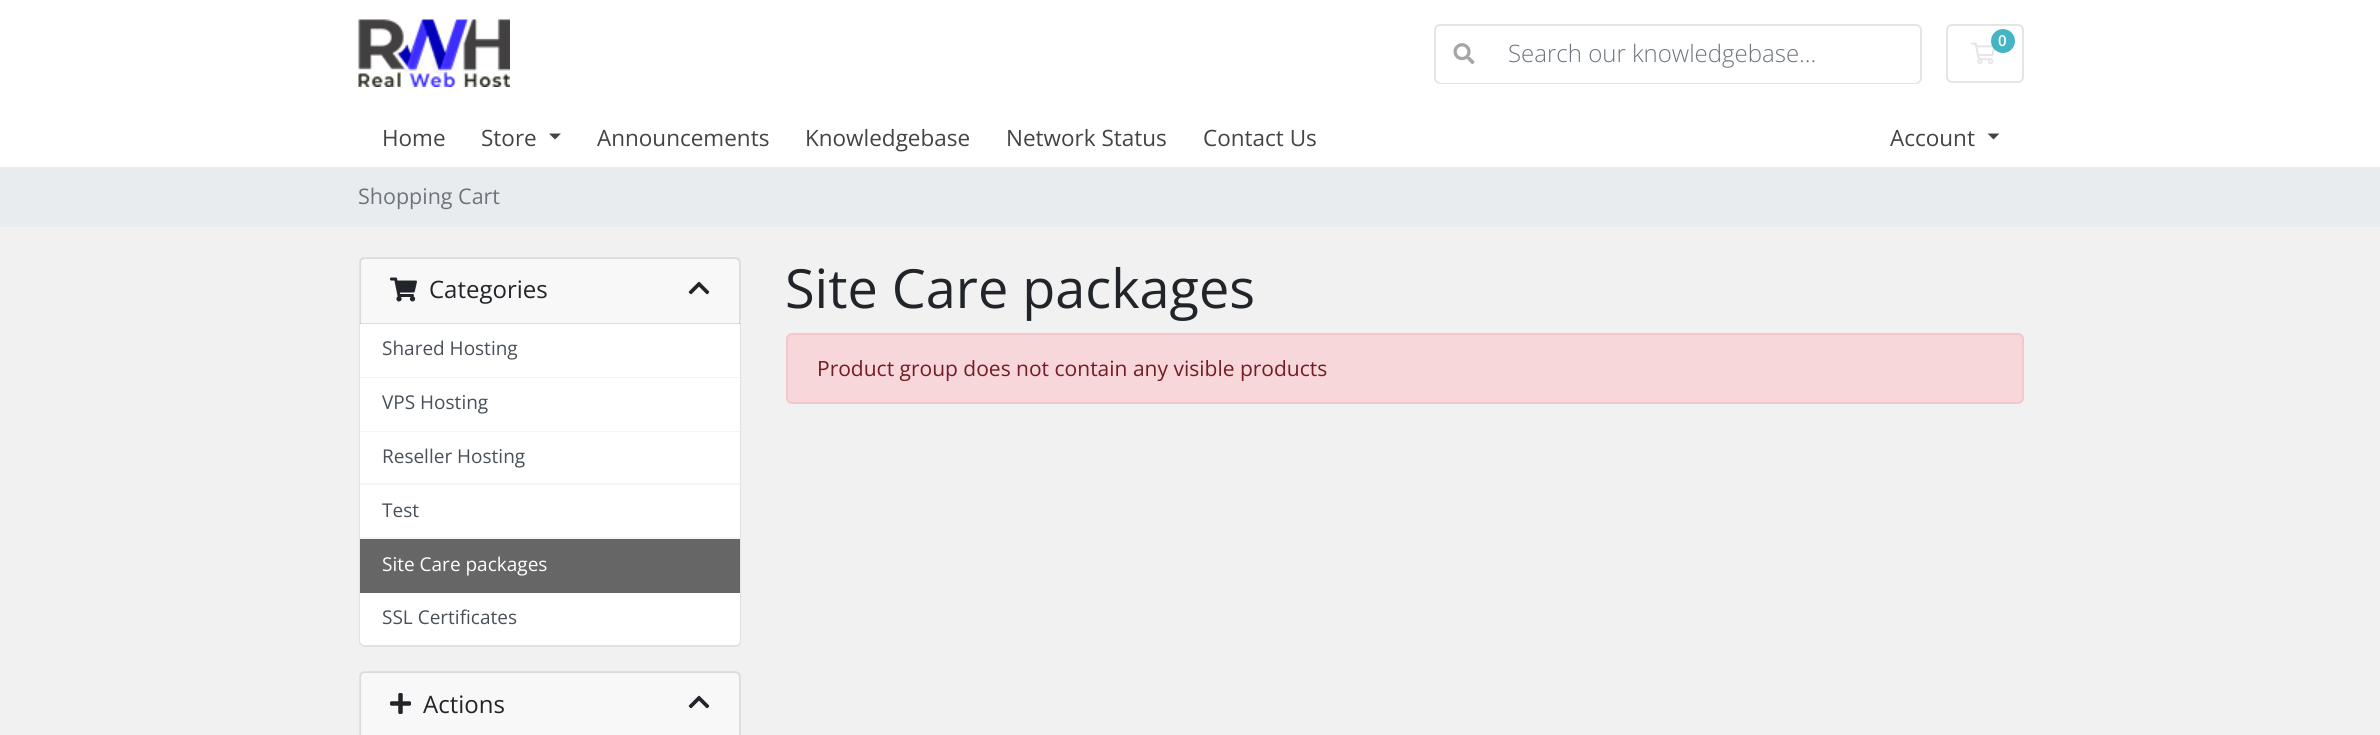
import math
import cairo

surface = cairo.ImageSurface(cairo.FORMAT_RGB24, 2380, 735)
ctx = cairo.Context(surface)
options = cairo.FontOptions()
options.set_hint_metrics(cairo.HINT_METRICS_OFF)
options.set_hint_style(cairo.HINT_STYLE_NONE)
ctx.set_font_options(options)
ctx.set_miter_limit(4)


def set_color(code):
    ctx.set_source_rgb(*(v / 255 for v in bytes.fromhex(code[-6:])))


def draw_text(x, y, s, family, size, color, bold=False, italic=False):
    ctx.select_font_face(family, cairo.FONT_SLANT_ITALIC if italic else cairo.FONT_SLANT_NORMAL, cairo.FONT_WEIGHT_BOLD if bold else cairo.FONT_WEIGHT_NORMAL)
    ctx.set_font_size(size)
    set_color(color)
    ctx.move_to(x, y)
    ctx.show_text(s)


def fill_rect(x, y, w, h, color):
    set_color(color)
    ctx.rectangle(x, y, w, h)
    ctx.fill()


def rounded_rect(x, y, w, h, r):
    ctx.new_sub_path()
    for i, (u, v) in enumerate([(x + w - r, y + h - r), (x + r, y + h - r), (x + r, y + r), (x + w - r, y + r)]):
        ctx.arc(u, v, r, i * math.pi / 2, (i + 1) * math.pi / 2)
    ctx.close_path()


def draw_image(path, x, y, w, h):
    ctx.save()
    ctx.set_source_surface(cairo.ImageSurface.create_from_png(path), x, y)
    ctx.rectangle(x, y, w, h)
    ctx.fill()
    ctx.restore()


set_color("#f1f1f1")
ctx.paint()
fill_rect(0, 0, 2380, 167, "#ffffff")
draw_image("assets/img1.png", 358, 19, 152, 68)
rounded_rect(1947, 25, 76, 57, 5)
set_color("#e5e5e5")
ctx.stroke()
draw_image("assets/img2.png", 1971, 42, 25, 22)
ctx.set_source_rgba(0.09, 0.635, 0.722, 0.8)
ctx.arc(2003, 41, 12, 0, 2 * math.pi)
ctx.fill()
draw_text(1998, 46, "0", "Open Sans SemiBold", 15, "#ffffff")
rounded_rect(1435, 25, 486, 58, 5)
set_color("#e5e5e5")
ctx.stroke()
set_color("#ffffff")
ctx.new_path()
ctx.move_to(1491, 26)
ctx.line_to(1914, 26)
ctx.curve_to(1917.5, 26, 1920, 28.5, 1920, 32)
ctx.line_to(1920, 77)
ctx.curve_to(1920, 80.5, 1917.5, 83, 1914, 83)
ctx.line_to(1491, 83)
ctx.close_path()
ctx.fill()
ctx.new_path()
ctx.move_to(1442, 26)
ctx.line_to(1493, 26)
ctx.line_to(1493, 83)
ctx.line_to(1442, 83)
ctx.curve_to(1438.5, 83, 1436, 80.5, 1436, 77)
ctx.line_to(1436, 32)
ctx.curve_to(1436, 28.5, 1438.5, 26, 1442, 26)
ctx.close_path()
ctx.fill()
draw_image("assets/img3.png", 1453, 43, 22, 22)
draw_text(1508, 62, "Search our knowledgebase...", "Open Sans Light", 24, "#6c757d")
draw_text(382, 146, "Home", "Open Sans", 22.5, "#444444")
draw_text(481, 146, "Store", "Open Sans", 22.5, "#444444")
ctx.new_path()
ctx.move_to(549, 133.5)
ctx.line_to(561, 133.5)
ctx.line_to(555, 139.5)
ctx.close_path()
ctx.fill()
draw_text(597, 146, "Announcements", "Open Sans", 22.5, "#444444")
draw_text(805, 146, "Knowledgebase", "Open Sans", 22.5, "#444444")
draw_text(1006, 146, "Network Status", "Open Sans", 22.5, "#444444")
draw_text(1203, 146, "Contact Us", "Open Sans", 22.5, "#444444")
draw_text(1890, 146, "Account", "Open Sans", 22.5, "#444444")
ctx.new_path()
ctx.move_to(1987.5, 133.5)
ctx.line_to(1999.5, 133.5)
ctx.line_to(1993.5, 139.5)
ctx.close_path()
ctx.fill()
fill_rect(0, 167, 2380, 60, "#e9ecef")
draw_text(358, 204, "Shopping Cart", "Open Sans", 21.5, "#6c757d")
set_color("#ffffff")
rounded_rect(359, 257, 382, 390, 6)
ctx.fill()
rounded_rect(360, 258, 380, 388, 5)
ctx.set_source_rgba(0, 0, 0, 0.12)
ctx.stroke()
ctx.set_source_rgba(0, 0, 0, 0.03)
ctx.rectangle(360, 258, 380, 66)
ctx.fill()
ctx.set_source_rgba(0, 0, 0, 0.12)
ctx.rectangle(360, 323, 380, 1)
ctx.fill()
draw_image("assets/img4.png", 390, 277, 27, 25)
draw_text(429, 298, "Categories", "Open Sans", 24, "#212529")
draw_image("assets/img5.png", 688, 281, 22, 14)
fill_rect(360, 324, 380, 53, "#ffffff")
fill_rect(360, 377, 380, 1, "#f5f5f5")
draw_text(382, 355, "Shared Hosting", "Open Sans", 19, "#495057")
fill_rect(360, 378, 380, 53, "#ffffff")
fill_rect(360, 431, 380, 1, "#f5f5f5")
draw_text(382, 409, "VPS Hosting", "Open Sans", 19, "#495057")
fill_rect(360, 432, 380, 51, "#ffffff")
fill_rect(360, 483, 380, 2, "#f5f5f5")
draw_text(382, 463, "Reseller Hosting", "Open Sans", 19, "#495057")
fill_rect(360, 485, 380, 52, "#ffffff")
fill_rect(360, 537, 380, 2, "#f5f5f5")
draw_text(382, 517, "Test", "Open Sans", 19, "#495057")
fill_rect(360, 539, 380, 54, "#666666")
draw_text(382, 571, "Site Care packages", "Open Sans", 19, "#ffffff")
ctx.new_path()
ctx.move_to(360, 593)
ctx.line_to(740, 593)
ctx.line_to(740, 640)
ctx.curve_to(740, 643, 738, 645, 735, 645)
ctx.line_to(365, 645)
ctx.curve_to(362, 645, 360, 643, 360, 640)
ctx.close_path()
ctx.fill()
draw_text(382, 624, "SSL Certificates", "Open Sans", 19, "#495057")
set_color("#ffffff")
rounded_rect(359, 671, 382, 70, 6)
ctx.fill()
rounded_rect(360, 672, 380, 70, 5)
ctx.set_source_rgba(0, 0, 0, 0.12)
ctx.stroke()
ctx.set_source_rgba(0, 0, 0, 0.03)
ctx.rectangle(360, 672, 380, 63)
ctx.fill()
draw_image("assets/img6.png", 390, 693, 21, 21)
draw_text(423, 713, "Actions", "Open Sans", 24, "#212529")
draw_image("assets/img5.png", 688, 695, 22, 14)
draw_text(785, 308, "Site Care packages", "Open Sans", 54, "#212529")
set_color("#f8d7da")
rounded_rect(787, 334, 1236, 69, 5)
ctx.fill_preserve()
set_color("#f5c6cb")
ctx.stroke()
draw_text(817, 376, "Product group does not contain any visible products", "Open Sans", 21, "#721c24")
surface.write_to_png("output.png")
